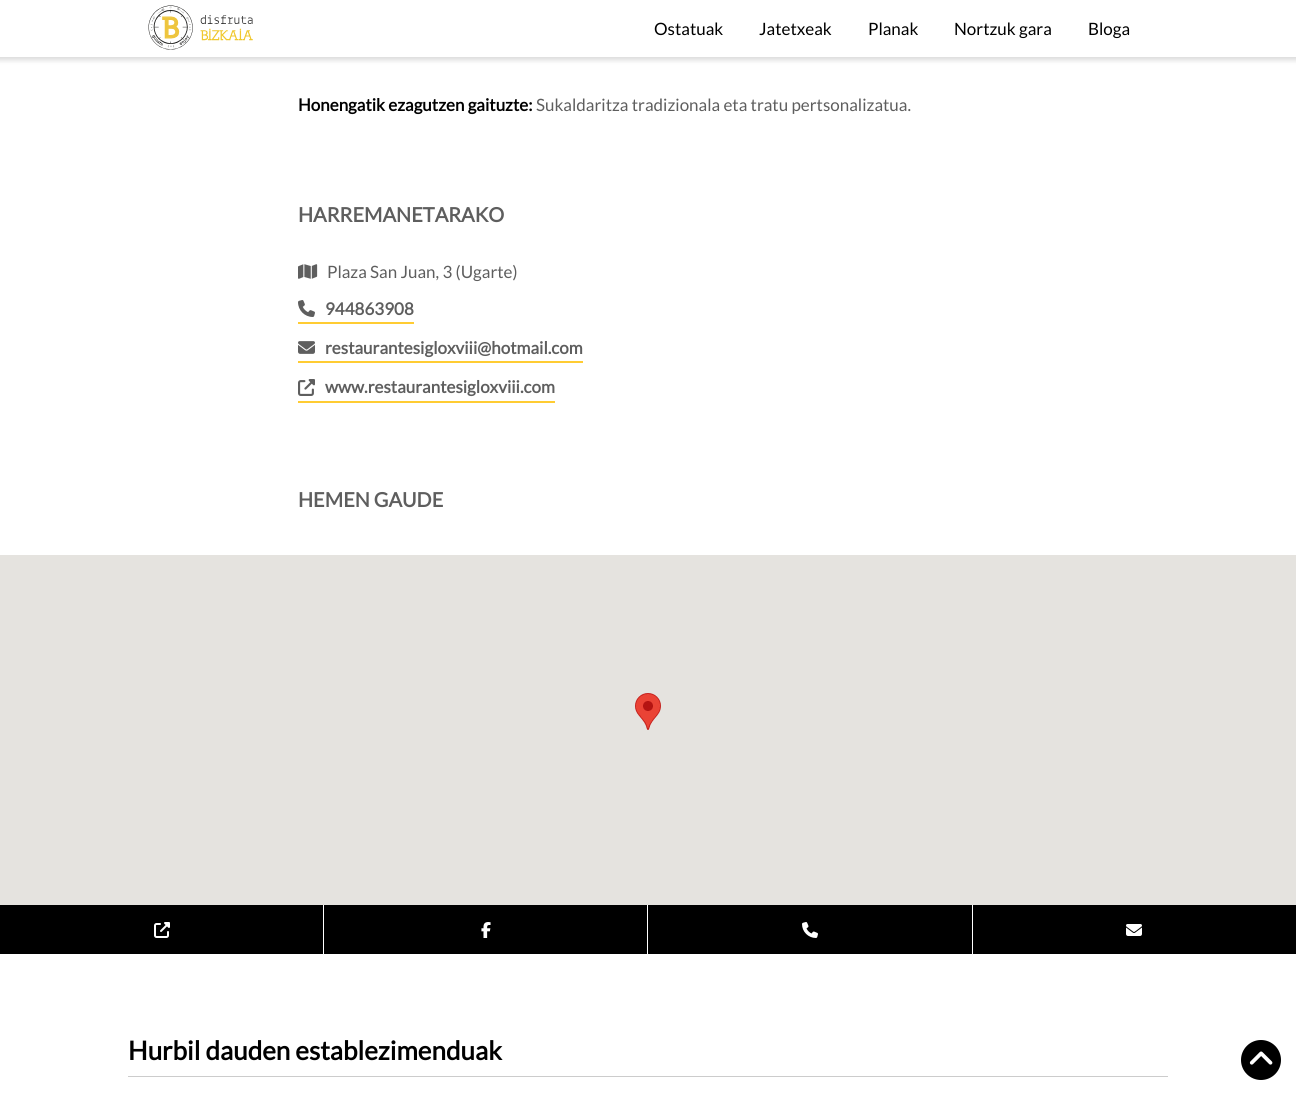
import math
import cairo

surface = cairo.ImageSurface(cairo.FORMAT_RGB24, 1296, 1095)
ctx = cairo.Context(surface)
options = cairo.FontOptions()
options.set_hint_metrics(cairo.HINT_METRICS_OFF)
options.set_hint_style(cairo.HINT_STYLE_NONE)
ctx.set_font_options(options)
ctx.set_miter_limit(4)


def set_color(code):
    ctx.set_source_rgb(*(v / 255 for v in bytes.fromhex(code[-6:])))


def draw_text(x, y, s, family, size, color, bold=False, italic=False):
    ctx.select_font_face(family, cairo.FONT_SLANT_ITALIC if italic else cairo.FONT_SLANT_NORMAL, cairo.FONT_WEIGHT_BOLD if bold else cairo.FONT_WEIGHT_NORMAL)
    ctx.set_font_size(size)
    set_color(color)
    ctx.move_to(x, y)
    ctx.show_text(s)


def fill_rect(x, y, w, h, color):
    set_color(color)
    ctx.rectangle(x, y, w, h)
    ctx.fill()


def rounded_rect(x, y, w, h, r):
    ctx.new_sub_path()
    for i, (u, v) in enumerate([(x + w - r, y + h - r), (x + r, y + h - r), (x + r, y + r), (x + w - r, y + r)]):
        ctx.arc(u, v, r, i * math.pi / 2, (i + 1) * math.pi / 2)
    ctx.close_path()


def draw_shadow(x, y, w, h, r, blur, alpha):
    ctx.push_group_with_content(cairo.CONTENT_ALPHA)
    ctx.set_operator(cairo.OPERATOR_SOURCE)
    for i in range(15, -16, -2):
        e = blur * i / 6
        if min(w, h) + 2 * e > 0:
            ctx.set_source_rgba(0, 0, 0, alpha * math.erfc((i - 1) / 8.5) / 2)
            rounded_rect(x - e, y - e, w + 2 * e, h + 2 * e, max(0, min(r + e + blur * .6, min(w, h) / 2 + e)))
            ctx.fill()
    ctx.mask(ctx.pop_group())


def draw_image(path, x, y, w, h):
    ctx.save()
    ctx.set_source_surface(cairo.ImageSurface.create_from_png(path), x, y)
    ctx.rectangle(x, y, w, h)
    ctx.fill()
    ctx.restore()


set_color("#ffffff")
ctx.paint()
set_color("#000000")
draw_shadow(-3, -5, 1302, 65, 0, 2.5, 0.15)
fill_rect(0, 0, 1296, 57, "#ffffff")
draw_image("assets/img1.png", 148, 5, 105, 45)
draw_text(654, 35, "Ostatuak", "Lato", 17, "#000000")
draw_text(759, 35, "Jatetxeak", "Lato", 17, "#000000")
draw_text(868, 35, "Planak", "Lato", 17, "#000000")
draw_text(954, 35, "Nortzuk gara", "Lato", 17, "#000000")
draw_text(1088, 35, "Bloga", "Lato", 17, "#000000")
draw_text(298, 111, "Honengatik ezagutzen gaituzte:", "Lato", 17, "#000000", bold=True)
draw_text(536, 111, "Sukaldaritza tradizionala eta tratu pertsonalizatua.", "Lato", 17, "#5e5e5e")
draw_text(298, 222, "HARREMANETARAKO", "Lato", 20, "#5e5e5e", bold=True)
draw_image("assets/img2.png", 298, 264, 20, 15)
draw_text(327, 278, "Plaza San Juan, 3 (Ugarte)", "Lato", 17, "#5e5e5e")
fill_rect(298, 322, 116, 2, "#ffcc33")
draw_image("assets/img3.png", 298, 300, 17, 17)
draw_text(325, 315, "944863908", "Lato", 17, "#5e5e5e", bold=True)
fill_rect(298, 361, 285, 2, "#ffcc33")
draw_image("assets/img4.png", 298, 341, 17, 13)
draw_text(325, 354, "restaurantesigloxviii@hotmail.com", "Lato", 17, "#5e5e5e", bold=True)
fill_rect(298, 401, 257, 2, "#ffcc33")
draw_image("assets/img5.png", 298, 379, 17, 17)
draw_text(325, 393, "www.restaurantesigloxviii.com", "Lato", 17, "#5e5e5e", bold=True)
draw_text(298, 507, "HEMEN GAUDE", "Lato", 20, "#5e5e5e", bold=True)
fill_rect(0, 555, 1296, 350, "#e5e3df")
draw_image("assets/img6.png", 635, 693, 26, 37)
fill_rect(0, 905, 323, 49, "#000000")
draw_image("assets/img7.png", 154, 922, 16, 16)
fill_rect(324, 905, 323, 49, "#000000")
draw_image("assets/img8.png", 481, 922, 10, 16)
fill_rect(648, 905, 324, 49, "#000000")
draw_image("assets/img9.png", 802, 922, 16, 16)
fill_rect(973, 905, 323, 49, "#000000")
draw_image("assets/img10.png", 1126, 924, 16, 12)
fill_rect(128, 1076, 1040, 1, "#cccccc")
draw_text(128, 1060, "Hurbil dauden establezimenduak", "Lato", 26, "#000000", bold=True)
ctx.new_path()
ctx.arc(1261, 1060, 20, 0, 2 * math.pi)
ctx.fill()
draw_image("assets/img11.png", 1249, 1051, 24, 14)
surface.write_to_png("output.png")
